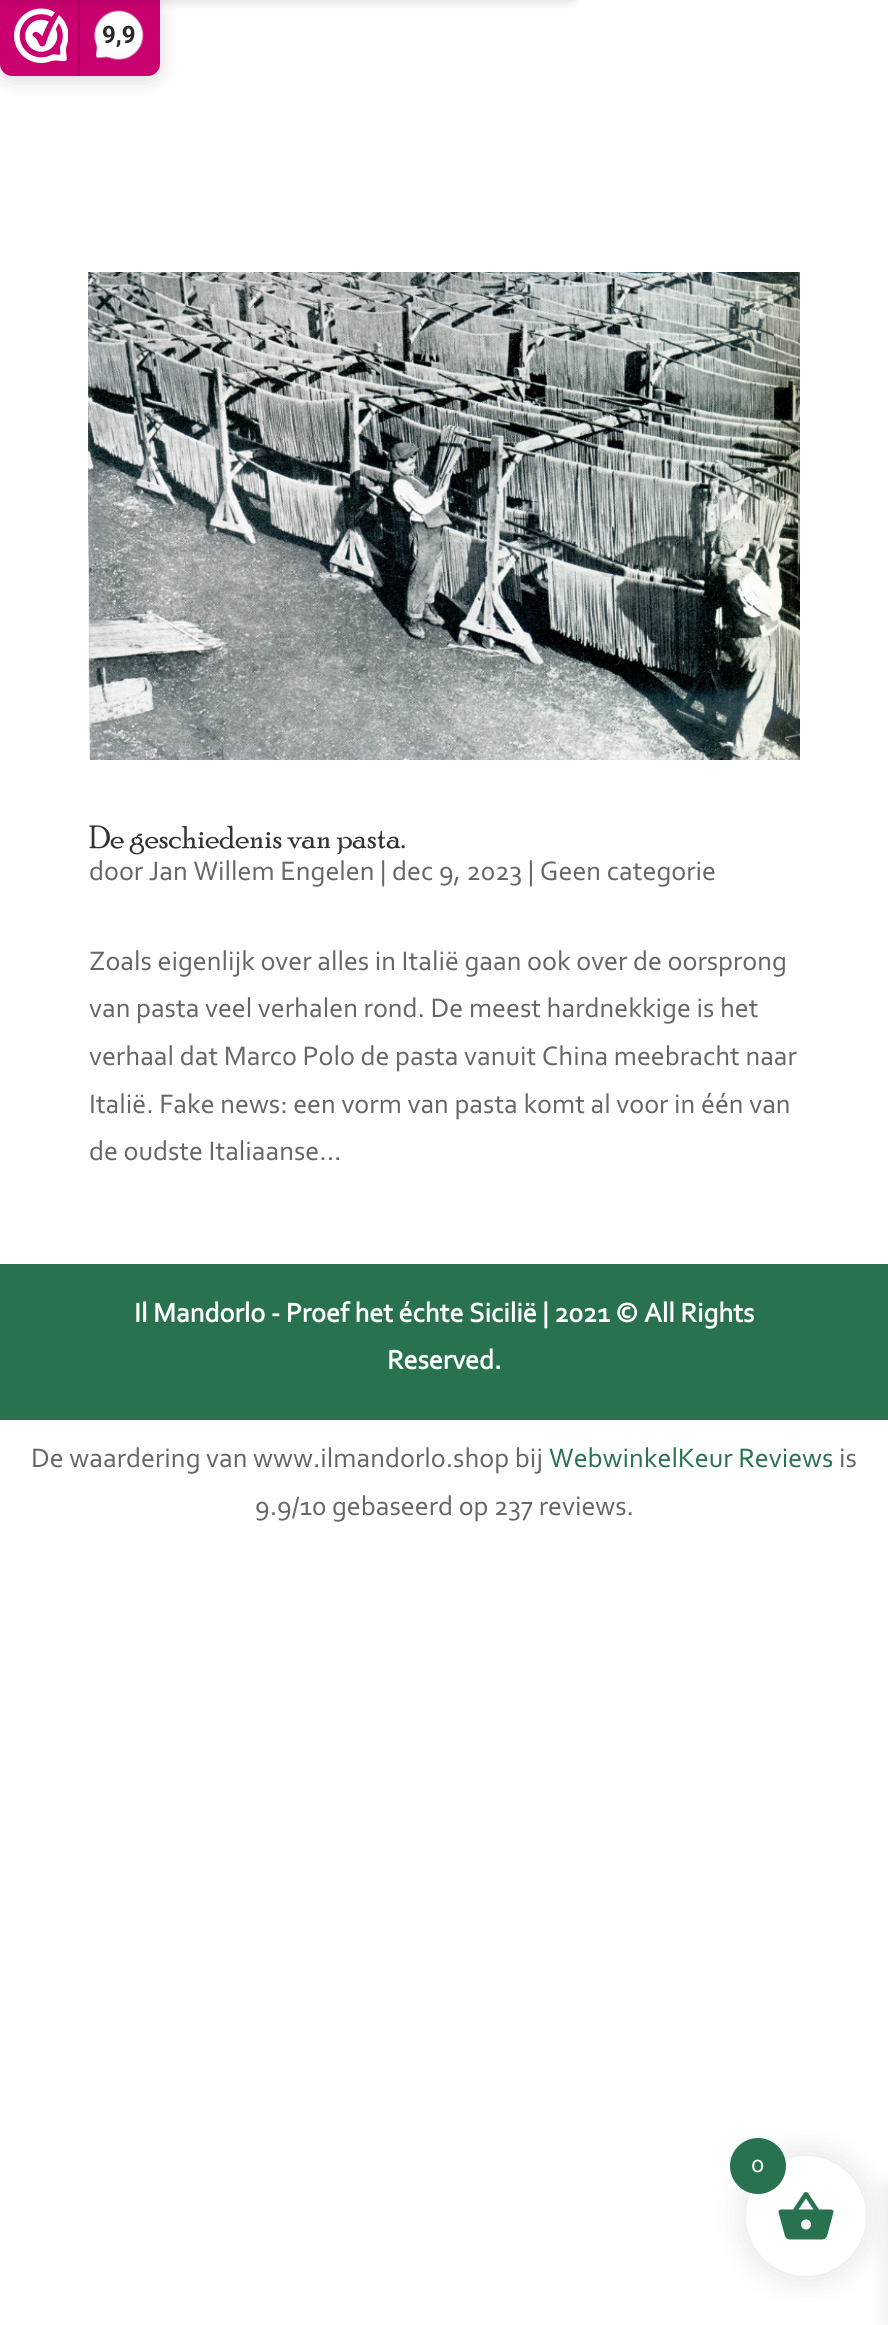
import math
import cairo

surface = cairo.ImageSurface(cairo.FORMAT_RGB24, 888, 2325)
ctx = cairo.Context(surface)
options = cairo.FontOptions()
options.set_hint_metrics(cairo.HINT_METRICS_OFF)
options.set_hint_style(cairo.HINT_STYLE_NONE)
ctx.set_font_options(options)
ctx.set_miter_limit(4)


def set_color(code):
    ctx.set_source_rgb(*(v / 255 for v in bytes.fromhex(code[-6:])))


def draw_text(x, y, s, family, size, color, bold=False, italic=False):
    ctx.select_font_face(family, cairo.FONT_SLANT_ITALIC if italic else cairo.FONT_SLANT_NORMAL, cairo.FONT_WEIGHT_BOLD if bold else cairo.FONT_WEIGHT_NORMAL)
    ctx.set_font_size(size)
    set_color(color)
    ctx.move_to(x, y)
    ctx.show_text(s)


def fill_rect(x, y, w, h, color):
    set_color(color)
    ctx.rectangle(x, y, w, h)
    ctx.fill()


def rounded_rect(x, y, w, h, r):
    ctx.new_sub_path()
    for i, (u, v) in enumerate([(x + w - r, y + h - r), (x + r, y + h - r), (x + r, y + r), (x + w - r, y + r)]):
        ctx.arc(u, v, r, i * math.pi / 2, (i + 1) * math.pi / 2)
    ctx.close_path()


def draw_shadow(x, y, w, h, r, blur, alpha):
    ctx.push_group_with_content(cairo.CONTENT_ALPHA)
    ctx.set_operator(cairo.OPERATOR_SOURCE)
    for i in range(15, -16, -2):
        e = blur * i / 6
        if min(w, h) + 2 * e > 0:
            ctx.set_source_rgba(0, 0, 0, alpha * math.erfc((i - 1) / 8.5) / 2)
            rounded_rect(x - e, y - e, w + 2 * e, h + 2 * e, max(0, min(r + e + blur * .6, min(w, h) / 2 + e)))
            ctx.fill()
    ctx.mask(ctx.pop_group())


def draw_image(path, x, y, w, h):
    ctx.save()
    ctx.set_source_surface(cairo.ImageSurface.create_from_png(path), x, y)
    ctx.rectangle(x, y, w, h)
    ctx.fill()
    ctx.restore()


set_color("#ffffff")
ctx.paint()
set_color("#000000")
draw_shadow(0, 0, 160, 80, 12, 10, 0.15)
set_color("#cb0070")
ctx.new_path()
ctx.move_to(0, -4)
ctx.line_to(160, -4)
ctx.line_to(160, 64)
ctx.curve_to(160, 70.5, 154.5, 76, 148, 76)
ctx.line_to(12, 76)
ctx.curve_to(5.5, 76, 0, 70.5, 0, 64)
ctx.close_path()
ctx.fill()
draw_image("assets/img1.png", 14, 8, 54, 55)
fill_rect(78, 0, 2, 76, "#ad005f")
draw_image("assets/img2.png", 94, 10, 50, 51)
set_color("#000000")
draw_shadow(0, -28, 580, 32, 16, 4, 0.1)
draw_text(102, 43, "9,9", "Roboto", 24, "#272626", bold=True)
draw_image("assets/img3.png", 88, 272, 712, 488)
draw_text(89, 848, "De geschiedenis van pasta.", "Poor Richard", 32, "#333333")
draw_text(89, 880, "door Jan Willem Engelen | dec 9, 2023 | Geen categorie", "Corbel", 28, "#666666")
draw_text(89, 970, "Zoals eigenlijk over alles in Italië gaan ook over de oorsprong", "Corbel", 28, "#666666")
draw_text(89, 1017, "van pasta veel verhalen rond. De meest hardnekkige is het", "Corbel", 28, "#666666")
draw_text(89, 1065, "verhaal dat Marco Polo de pasta vanuit China meebracht naar", "Corbel", 28, "#666666")
draw_text(89, 1113, "Italië. Fake news: een vorm van pasta komt al voor in één van", "Corbel", 28, "#666666")
draw_text(89, 1160, "de oudste Italiaanse...", "Corbel", 28, "#666666")
fill_rect(0, 1264, 888, 156, "#28724f")
draw_text(134, 1322, "Il Mandorlo - Proef het échte Sicilië | 2021 © All Rights", "Corbel", 28, "#ffffff", bold=True)
draw_text(387, 1369, "Reserved.", "Corbel", 28, "#ffffff", bold=True)
draw_text(31, 1467, "De waardering van www.ilmandorlo.shop bij", "Corbel", 28, "#666666")
draw_text(549, 1467, "WebwinkelKeur Reviews", "Corbel", 28, "#28724f")
draw_text(839, 1467, "is", "Corbel", 28, "#666666")
draw_text(255, 1515, "9.9/10 gebaseerd op 237 reviews.", "Corbel", 28, "#666666")
set_color("#000000")
draw_shadow(742, 2152, 128, 128, 64, 15, 0.1)
draw_shadow(888, 2188, 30, 136, 0, 10, 0.1)
set_color("#ffffff")
ctx.arc(806, 2216, 60, 0, 2 * math.pi)
ctx.fill()
draw_image("assets/img4.png", 778, 2192, 56, 48)
set_color("#28724f")
ctx.arc(758, 2166, 28, 0, 2 * math.pi)
ctx.fill()
draw_text(751, 2172, "0", "Corbel", 26, "#ffffff")
surface.write_to_png("output.png")
